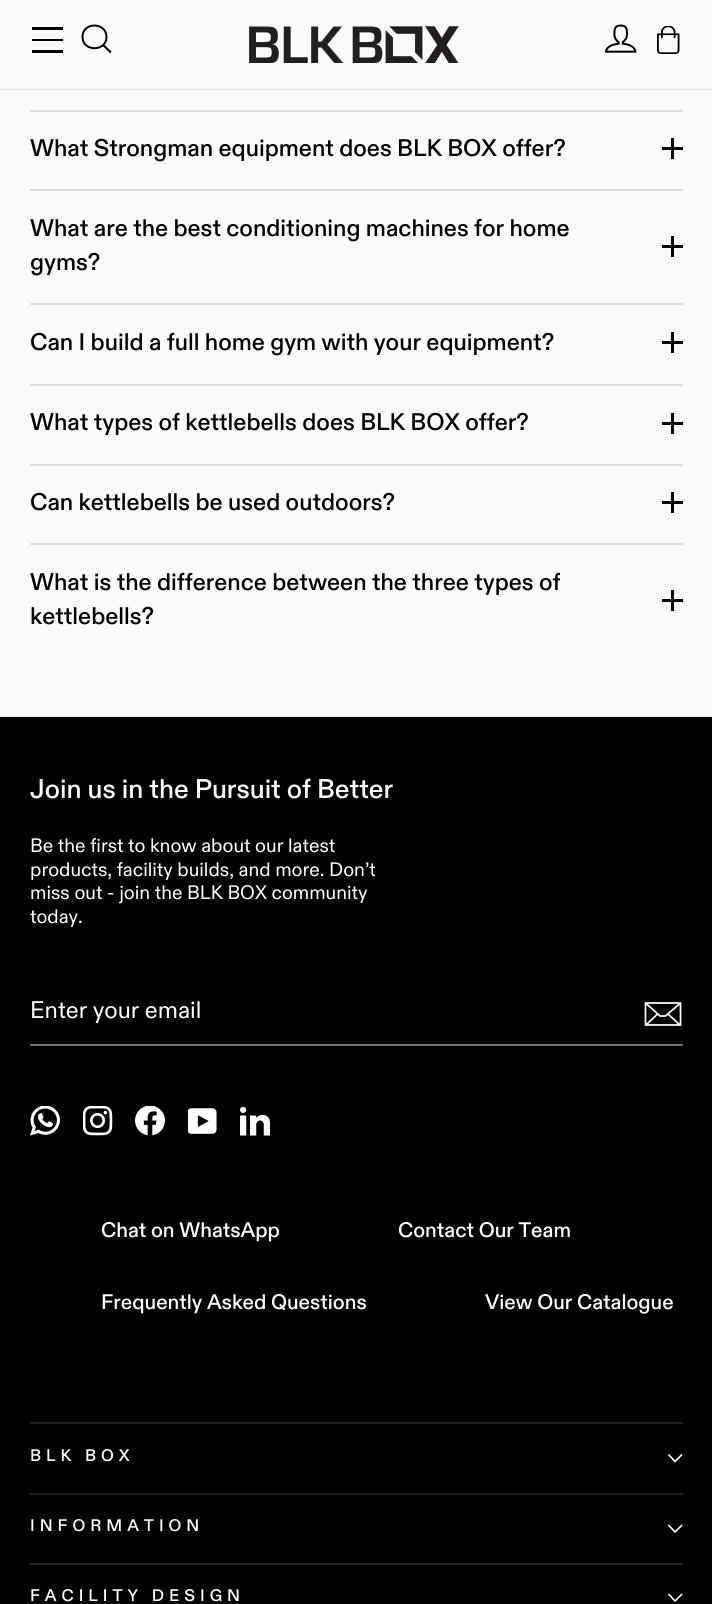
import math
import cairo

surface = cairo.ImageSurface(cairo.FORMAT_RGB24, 712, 1604)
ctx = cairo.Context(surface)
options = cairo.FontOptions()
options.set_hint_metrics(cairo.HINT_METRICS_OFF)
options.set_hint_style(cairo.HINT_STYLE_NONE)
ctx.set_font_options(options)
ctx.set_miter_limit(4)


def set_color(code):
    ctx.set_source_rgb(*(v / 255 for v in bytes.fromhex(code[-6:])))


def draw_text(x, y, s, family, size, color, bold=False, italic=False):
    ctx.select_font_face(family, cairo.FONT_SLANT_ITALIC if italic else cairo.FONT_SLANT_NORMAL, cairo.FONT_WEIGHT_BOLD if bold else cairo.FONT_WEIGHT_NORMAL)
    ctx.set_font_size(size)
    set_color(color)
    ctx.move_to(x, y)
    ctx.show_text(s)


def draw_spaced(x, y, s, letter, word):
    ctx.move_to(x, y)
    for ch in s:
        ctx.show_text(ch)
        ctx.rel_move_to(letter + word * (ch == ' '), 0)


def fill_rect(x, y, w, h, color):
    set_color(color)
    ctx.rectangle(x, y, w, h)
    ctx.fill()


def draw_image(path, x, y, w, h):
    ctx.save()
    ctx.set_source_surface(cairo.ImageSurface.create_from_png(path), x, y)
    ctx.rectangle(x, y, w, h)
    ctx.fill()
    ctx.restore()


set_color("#fafafa")
ctx.paint()
set_color("#e1e1e1")
ctx.new_path()
ctx.move_to(0, 88)
ctx.line_to(0, 90)
ctx.line_to(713, 90)
ctx.line_to(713, 2)
ctx.line_to(712, 2)
ctx.line_to(712, 88)
ctx.close_path()
ctx.fill()
fill_rect(0, 88, 712, 1, "#fafafa")
fill_rect(32, 27, 31, 3, "#000000")
fill_rect(32, 39, 31, 2, "#000000")
fill_rect(32, 50, 31, 3, "#000000")
ctx.new_path()
ctx.move_to(111, 52.5)
ctx.line_to(103, 45)
ctx.move_to(106.5, 37)
ctx.curve_to(106.5, 52, 82, 52, 82.5, 36.5)
ctx.curve_to(83, 21.5, 106.5, 22, 106.5, 37)
ctx.close_path()
ctx.stroke()
draw_image("assets/img1.png", 249, 26, 210, 37)
draw_image("assets/img2.png", 605, 24, 32, 29)
draw_image("assets/img3.png", 657, 26, 23, 28)
fill_rect(30, 110, 653, 2, "#dddddd")
draw_text(30, 156, "What Strongman equipment does BLK BOX offer?", "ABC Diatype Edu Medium", 24, "#000000")
fill_rect(671, 138, 3, 21, "#000000")
fill_rect(662, 147, 21, 3, "#000000")
fill_rect(30, 189, 653, 2, "#dddddd")
draw_text(30, 236, "What are the best conditioning machines for home", "ABC Diatype Edu Medium", 24, "#000000")
fill_rect(671, 236, 3, 21, "#000000")
fill_rect(662, 245, 21, 3, "#000000")
draw_text(30, 270, "gyms?", "ABC Diatype Edu Medium", 24, "#000000")
fill_rect(30, 303, 653, 2, "#dddddd")
draw_text(30, 350, "Can I build a full home gym with your equipment?", "ABC Diatype Edu Medium", 24, "#000000")
fill_rect(671, 332, 3, 21, "#000000")
fill_rect(662, 341, 21, 3, "#000000")
fill_rect(30, 384, 653, 2, "#dddddd")
draw_text(30, 430, "What types of kettlebells does BLK BOX offer?", "ABC Diatype Edu Medium", 24, "#000000")
fill_rect(671, 413, 3, 21, "#000000")
fill_rect(662, 422, 21, 3, "#000000")
fill_rect(30, 464, 653, 2, "#dddddd")
draw_text(30, 510, "Can kettlebells be used outdoors?", "ABC Diatype Edu Medium", 24, "#000000")
fill_rect(671, 492, 3, 21, "#000000")
fill_rect(662, 501, 21, 3, "#000000")
fill_rect(30, 543, 653, 2, "#dddddd")
draw_text(30, 590, "What is the difference between the three types of", "ABC Diatype Edu Medium", 24, "#000000")
fill_rect(671, 590, 3, 21, "#000000")
fill_rect(662, 599, 21, 3, "#000000")
draw_text(30, 624, "kettlebells?", "ABC Diatype Edu Medium", 24, "#000000")
fill_rect(0, 717, 712, 887, "#000000")
draw_text(30, 798, "Join us in the Pursuit of Better", "ABC Diatype Edu Medium", 27, "#ffffff")
draw_text(30, 852, "Be the first to know about our latest", "ABC Diatype Edu", 19.5, "#ffffff")
draw_text(30, 876, "products, facility builds, and more. Don’t", "ABC Diatype Edu", 19.5, "#ffffff")
draw_text(30, 899, "miss out - join the BLK BOX community", "ABC Diatype Edu", 19.5, "#ffffff")
draw_text(30, 923, "today.", "ABC Diatype Edu", 19.5, "#ffffff")
fill_rect(30, 1044, 653, 2, "#727272")
draw_text(30, 1018, "Enter your email", "ABC Diatype Edu", 24, "#ffffff")
ctx.new_path()
ctx.move_to(680.5, 1025)
ctx.line_to(645.5, 1025)
ctx.line_to(645.5, 1003)
ctx.line_to(680.5, 1003)
ctx.close_path()
ctx.move_to(645.5, 1003)
ctx.line_to(660, 1016)
ctx.line_to(665.5, 1016)
ctx.line_to(680.5, 1003)
ctx.move_to(657.5, 1014)
ctx.line_to(646, 1025)
ctx.move_to(680, 1025)
ctx.line_to(668, 1014)
ctx.set_line_width(1.7)
ctx.stroke()
draw_image("assets/img4.png", 30, 1106, 30, 30)
draw_image("assets/img5.png", 83, 1106, 30, 30)
draw_image("assets/img6.png", 135, 1106, 30, 30)
draw_image("assets/img7.png", 188, 1108, 29, 26)
draw_image("assets/img8.png", 240, 1106, 30, 30)
draw_text(101, 1237, "Chat on WhatsApp", "ABC Diatype Edu Medium", 21, "#ffffff")
draw_text(398, 1237, "Contact Our Team", "ABC Diatype Edu Medium", 21, "#ffffff")
draw_text(101, 1309, "Frequently Asked Questions", "ABC Diatype Edu Medium", 21, "#ffffff")
draw_text(485, 1309, "View Our Catalogue", "ABC Diatype Edu Medium", 21, "#ffffff")
fill_rect(30, 1422, 653, 2, "#1f1f1f")
ctx.set_font_size(16.75)
set_color("#ffffff")
draw_spaced(30, 1461, "BLK BOX", 5, 0)
ctx.new_path()
ctx.move_to(668.5, 1454.5)
ctx.line_to(675, 1461.5)
ctx.line_to(682, 1454.5)
ctx.set_line_width(1.6)
ctx.stroke()
fill_rect(30, 1493, 653, 2, "#1f1f1f")
set_color("#ffffff")
draw_spaced(30, 1531, "INFORMATION", 5, 0)
ctx.new_path()
ctx.move_to(668.5, 1525)
ctx.line_to(675, 1532)
ctx.line_to(682, 1525)
ctx.stroke()
fill_rect(30, 1563, 653, 2, "#1f1f1f")
set_color("#ffffff")
draw_spaced(30, 1601, "FACILITY DESIGN", 5, 0)
ctx.new_path()
ctx.move_to(668.5, 1594)
ctx.line_to(675, 1601)
ctx.line_to(682, 1594)
ctx.stroke()
surface.write_to_png("output.png")
